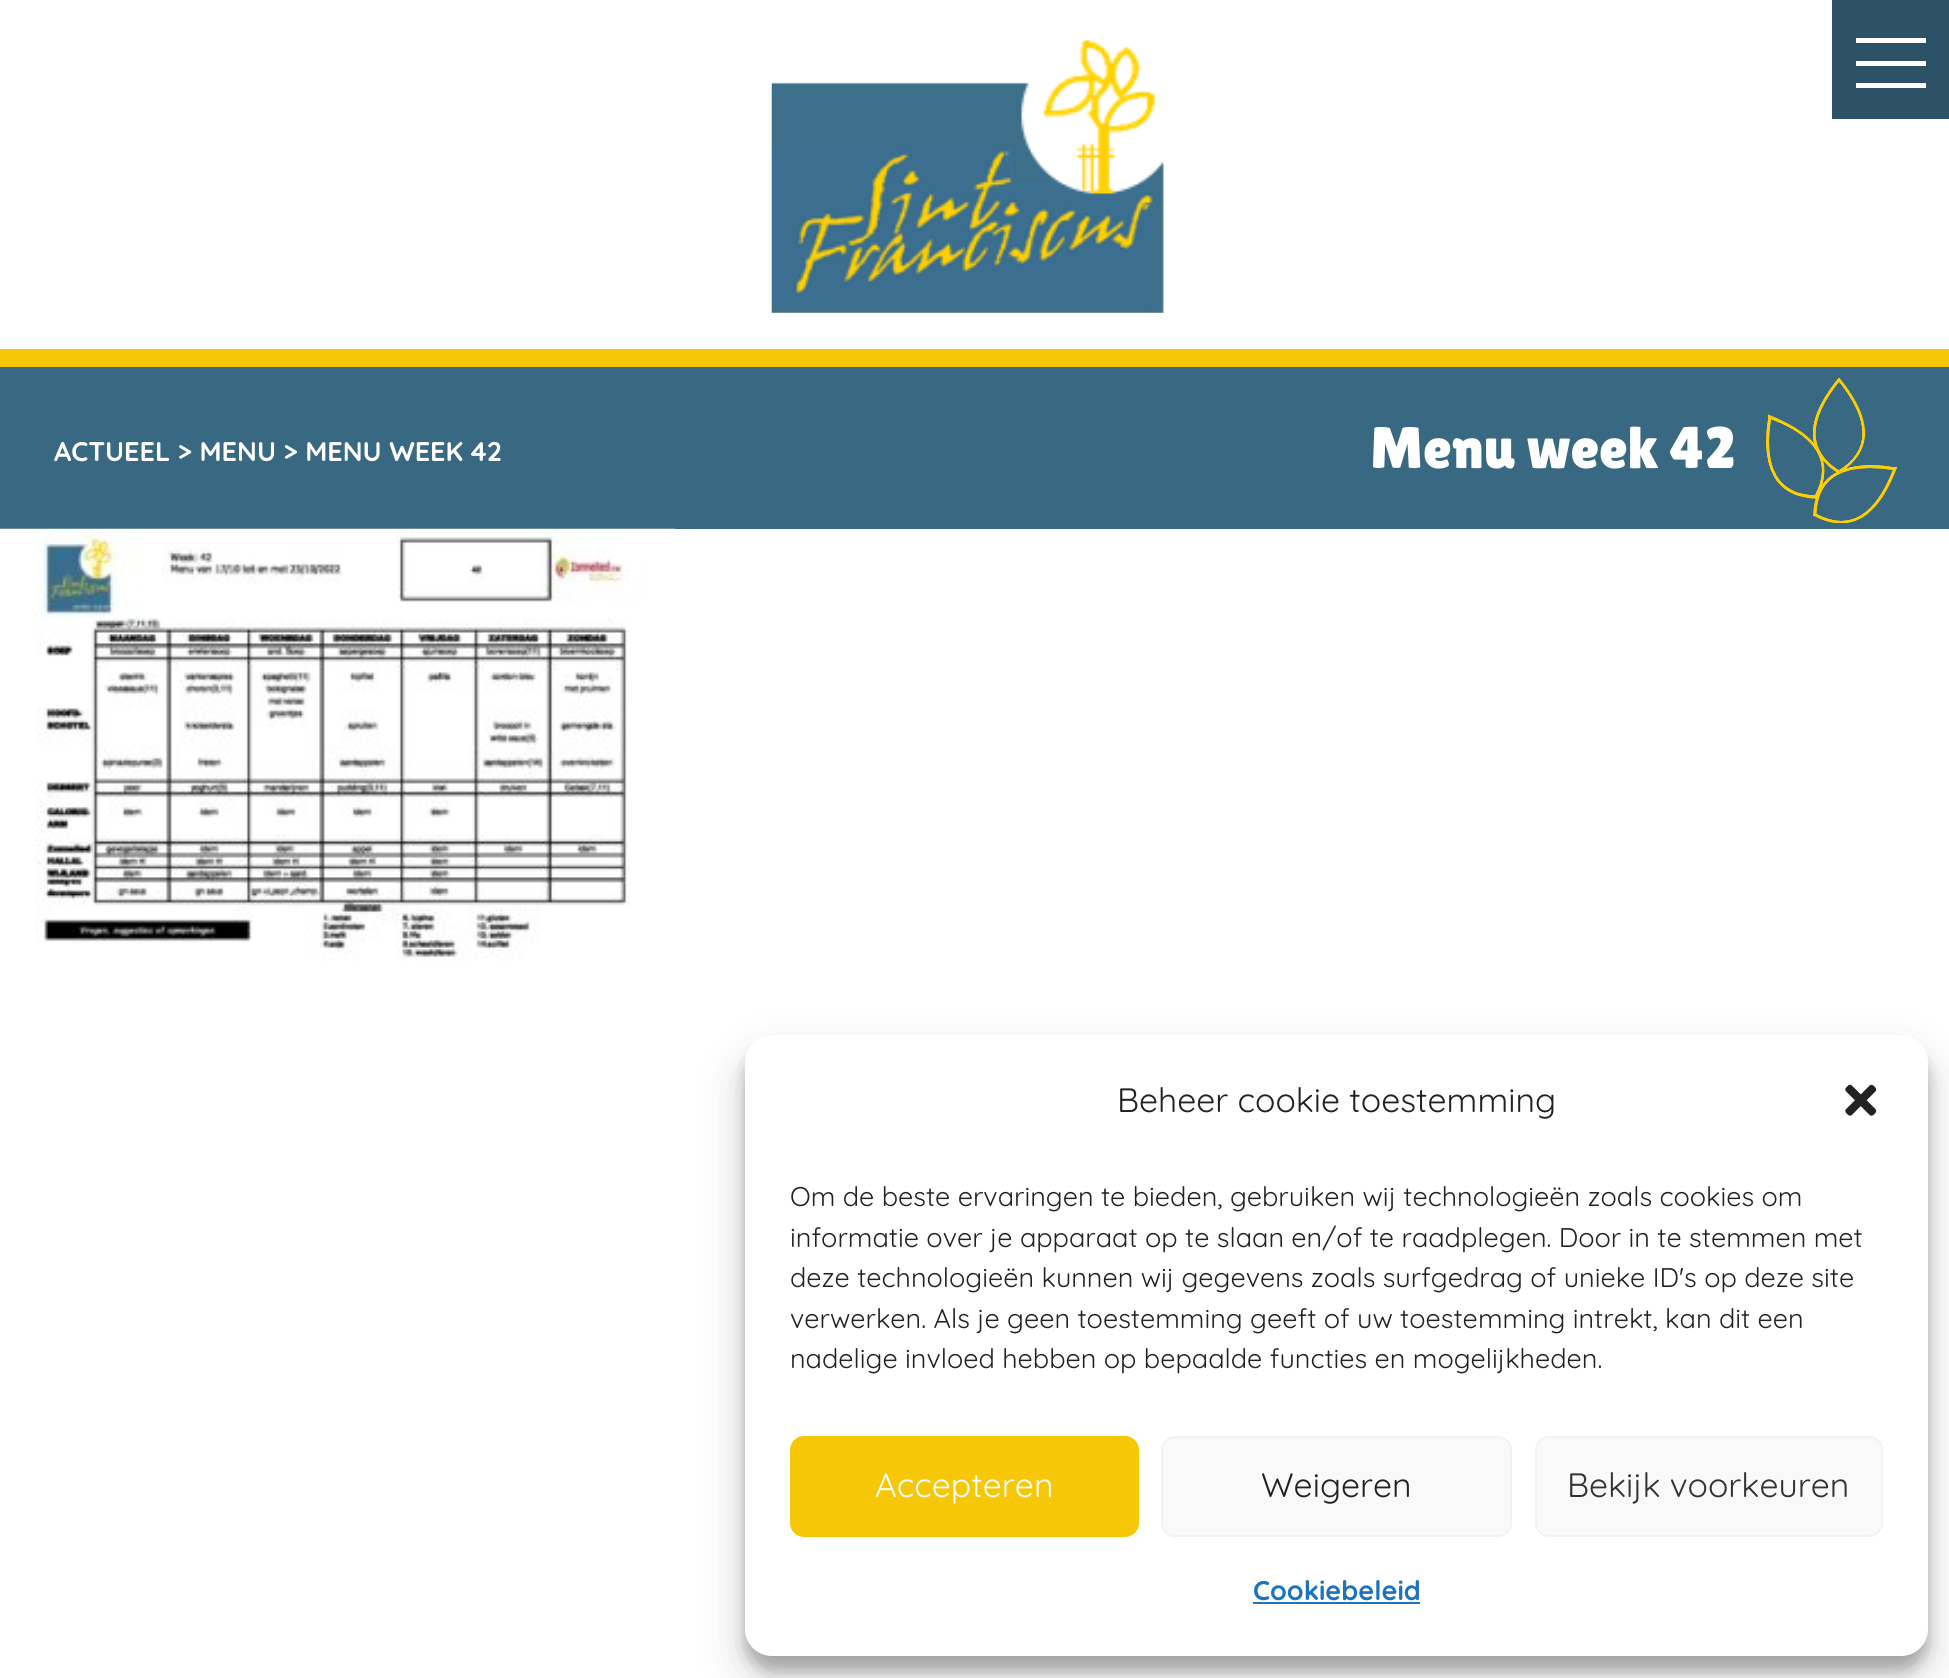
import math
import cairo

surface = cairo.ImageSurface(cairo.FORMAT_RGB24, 1949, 1678)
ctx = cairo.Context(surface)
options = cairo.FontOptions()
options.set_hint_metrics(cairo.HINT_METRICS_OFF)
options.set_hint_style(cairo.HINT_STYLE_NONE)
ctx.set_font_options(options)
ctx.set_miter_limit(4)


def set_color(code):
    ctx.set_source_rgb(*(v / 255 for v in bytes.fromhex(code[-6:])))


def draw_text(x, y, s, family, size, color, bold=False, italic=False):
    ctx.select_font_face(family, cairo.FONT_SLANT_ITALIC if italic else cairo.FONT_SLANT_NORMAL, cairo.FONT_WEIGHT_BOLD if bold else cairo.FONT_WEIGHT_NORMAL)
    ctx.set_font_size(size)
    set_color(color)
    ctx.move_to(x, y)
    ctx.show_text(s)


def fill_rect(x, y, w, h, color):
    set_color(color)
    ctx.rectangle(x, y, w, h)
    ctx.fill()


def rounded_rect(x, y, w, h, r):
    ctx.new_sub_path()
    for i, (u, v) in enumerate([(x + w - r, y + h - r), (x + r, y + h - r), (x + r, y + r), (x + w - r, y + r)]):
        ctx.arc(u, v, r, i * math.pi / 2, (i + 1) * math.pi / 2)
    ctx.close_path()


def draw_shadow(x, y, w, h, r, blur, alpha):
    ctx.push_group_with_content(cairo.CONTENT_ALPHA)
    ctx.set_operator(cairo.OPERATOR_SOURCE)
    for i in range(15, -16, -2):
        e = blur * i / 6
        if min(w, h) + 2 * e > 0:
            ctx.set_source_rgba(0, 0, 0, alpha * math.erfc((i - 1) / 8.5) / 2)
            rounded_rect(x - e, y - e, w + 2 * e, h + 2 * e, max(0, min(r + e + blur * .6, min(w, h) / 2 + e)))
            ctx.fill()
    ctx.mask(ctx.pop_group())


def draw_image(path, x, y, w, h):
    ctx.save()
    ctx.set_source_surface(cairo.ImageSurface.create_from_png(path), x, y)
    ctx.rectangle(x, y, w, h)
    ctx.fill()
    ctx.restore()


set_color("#ffffff")
ctx.paint()
draw_image("assets/img1.png", 771, 40, 393, 273)
fill_rect(1832, 0, 117, 119, "#2d5267")
fill_rect(1856, 61, 70, 5, "#ffffff")
fill_rect(1856, 38, 70, 5, "#ffffff")
fill_rect(1856, 83, 70, 5, "#ffffff")
fill_rect(0, 349, 1949, 18, "#f6c706")
fill_rect(0, 367, 1949, 162, "#396982")
draw_text(54, 461, "ACTUEEL > MENU > MENU WEEK 42", "Quicksand", 27, "#ffffff", bold=True)
draw_text(1370, 468, "Menu week 42", "Lilita One", 58.5, "#ffffff")
draw_image("assets/img2.png", 1766, 378, 132, 145)
draw_image("assets/img3.png", 0, 528, 675, 433)
set_color("#000000")
draw_shadow(745, 1049, 1183, 621, 27, 7, 0.23)
draw_shadow(745, 1058, 1183, 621, 27, 22.5, 0.19)
set_color("#ffffff")
rounded_rect(745, 1035, 1183, 621, 27)
ctx.fill()
draw_text(1117, 1112, "Beheer cookie toestemming", "Quicksand", 33.75, "#222222")
draw_image("assets/img4.png", 1845, 1084, 32, 32)
draw_text(790, 1206, "Om de beste ervaringen te bieden, gebruiken wij technologieën zoals cookies om", "Quicksand", 27, "#222222")
draw_text(790, 1247, "informatie over je apparaat op te slaan en/of te raadplegen. Door in te stemmen met", "Quicksand", 27, "#222222")
draw_text(790, 1287, "deze technologieën kunnen wij gegevens zoals surfgedrag of unieke ID's op deze site", "Quicksand", 27, "#222222")
draw_text(790, 1328, "verwerken. Als je geen toestemming geeft of uw toestemming intrekt, kan dit een", "Quicksand", 27, "#222222")
draw_text(790, 1368, "nadelige invloed hebben op bepaalde functies en mogelijkheden.", "Quicksand", 27, "#222222")
set_color("#f6c706")
rounded_rect(791, 1437, 347, 99, 13)
ctx.fill_preserve()
ctx.stroke()
draw_text(875, 1497, "Accepteren", "Quicksand", 33.75, "#ffffff")
set_color("#f9f9f9")
rounded_rect(1162, 1437, 349, 99, 13)
ctx.fill_preserve()
set_color("#f2f2f2")
ctx.stroke()
draw_text(1261, 1497, "Weigeren", "Quicksand", 33.75, "#222222")
set_color("#f9f9f9")
rounded_rect(1536, 1437, 346, 99, 13)
ctx.fill_preserve()
set_color("#f2f2f2")
ctx.stroke()
draw_text(1567, 1497, "Bekijk voorkeuren", "Quicksand", 33.75, "#333333")
draw_text(1253, 1600, "Cookiebeleid", "Quicksand", 27, "#1e73be", bold=True)
fill_rect(1253, 1602, 167, 2, "#1e73be")
surface.write_to_png("output.png")
